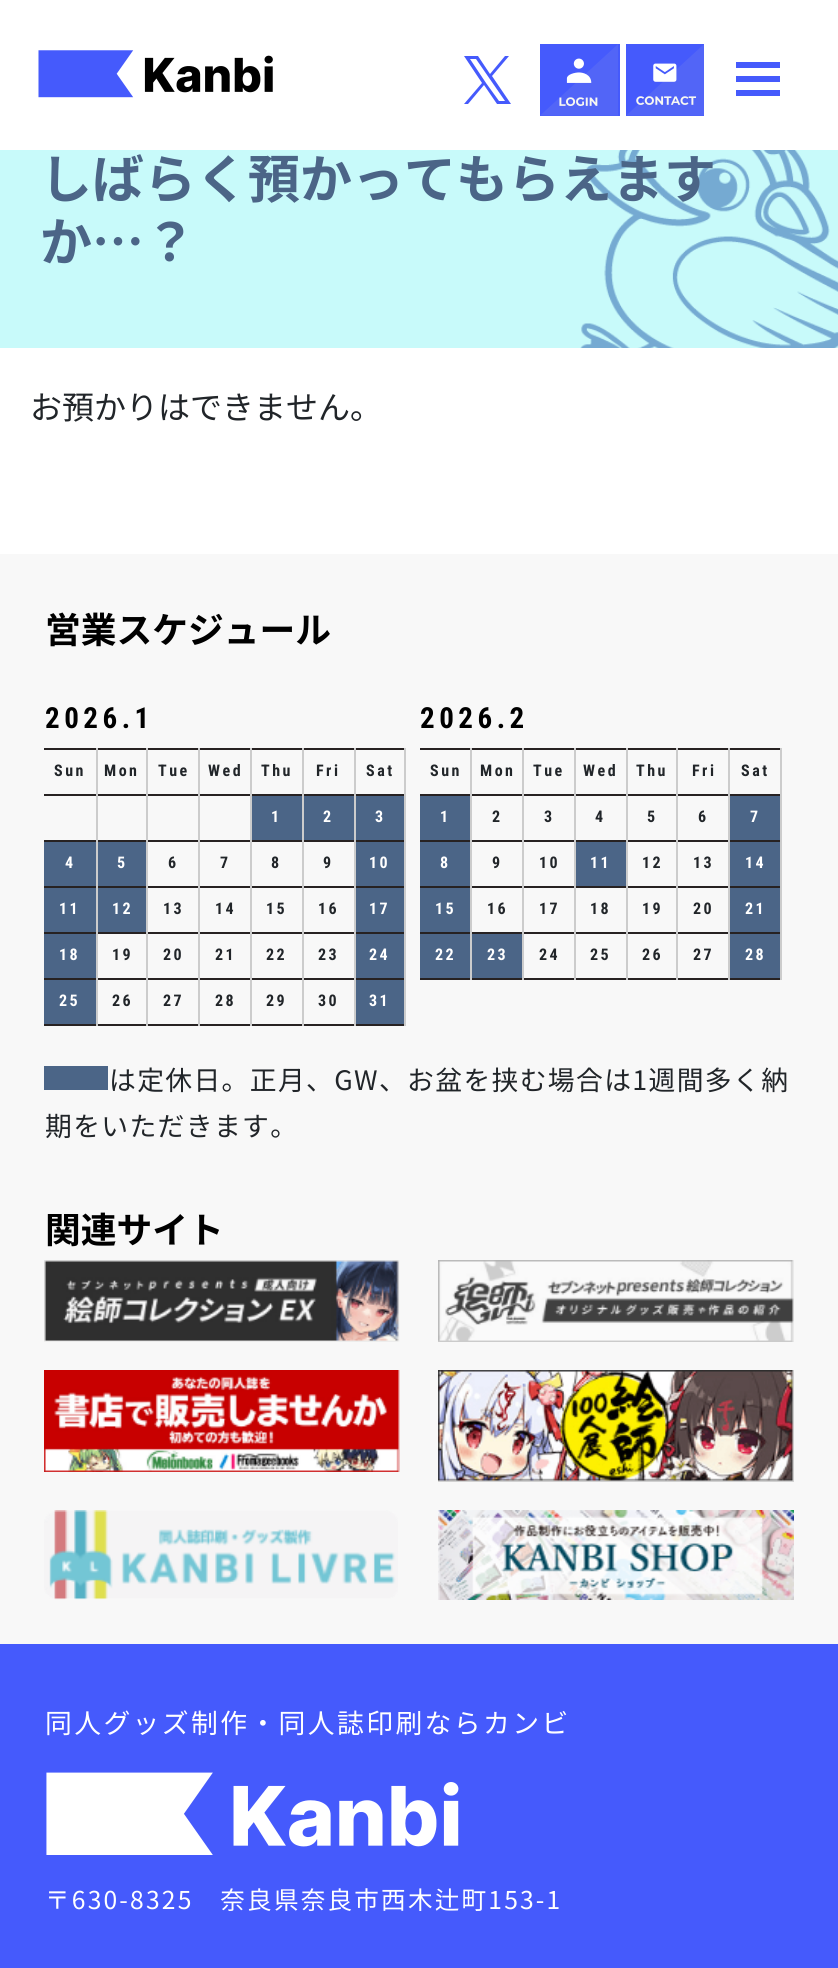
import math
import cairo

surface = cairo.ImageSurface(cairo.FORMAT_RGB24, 838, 1968)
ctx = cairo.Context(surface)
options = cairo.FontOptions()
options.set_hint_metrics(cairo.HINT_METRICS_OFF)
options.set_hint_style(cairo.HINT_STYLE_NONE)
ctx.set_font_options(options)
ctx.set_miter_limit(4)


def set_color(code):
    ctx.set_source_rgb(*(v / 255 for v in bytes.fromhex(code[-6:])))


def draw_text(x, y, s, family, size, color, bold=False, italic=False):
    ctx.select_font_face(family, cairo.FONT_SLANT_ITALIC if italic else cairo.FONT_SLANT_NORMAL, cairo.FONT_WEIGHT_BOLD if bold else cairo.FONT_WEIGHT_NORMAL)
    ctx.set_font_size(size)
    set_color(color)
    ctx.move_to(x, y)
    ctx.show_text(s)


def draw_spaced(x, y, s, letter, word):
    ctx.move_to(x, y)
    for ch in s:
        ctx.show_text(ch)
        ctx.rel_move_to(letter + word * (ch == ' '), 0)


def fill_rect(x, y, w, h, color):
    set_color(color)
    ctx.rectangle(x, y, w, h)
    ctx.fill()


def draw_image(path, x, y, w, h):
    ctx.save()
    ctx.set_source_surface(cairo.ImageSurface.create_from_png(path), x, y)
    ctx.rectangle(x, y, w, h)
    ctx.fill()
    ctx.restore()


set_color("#ffffff")
ctx.paint()
draw_image("assets/img1.png", 38, 50, 235, 48)
set_color("#455afc")
ctx.new_path()
ctx.move_to(492, 76)
ctx.line_to(509, 56)
ctx.line_to(505, 56)
ctx.line_to(490, 74)
ctx.line_to(478, 56)
ctx.line_to(464, 56)
ctx.line_to(482, 83)
ctx.line_to(464, 104)
ctx.line_to(468, 104)
ctx.line_to(484, 85)
ctx.line_to(497, 104)
ctx.line_to(511, 104)
ctx.close_path()
ctx.move_to(486, 83)
ctx.line_to(470, 59)
ctx.line_to(476, 59)
ctx.line_to(505, 101)
ctx.line_to(499, 101)
ctx.close_path()
ctx.fill()
fill_rect(618, 44, 2, 72, "#455afc")
draw_image("assets/img2.png", 540, 44, 78, 72)
draw_image("assets/img3.png", 626, 44, 78, 72)
fill_rect(736, 62, 44, 6, "#455afc")
fill_rect(736, 90, 44, 6, "#455afc")
fill_rect(736, 76, 44, 6, "#455afc")
fill_rect(0, 150, 838, 198, "#c8fafa")
draw_image("assets/img4.png", 580, 150, 258, 198)
draw_text(40, 198, "しばらく預かってもらえます", "Noto Sans JP", 52, "#4b6587", bold=True)
draw_text(40, 261, "か…？", "Noto Sans JP", 52, "#4b6587", bold=True)
draw_text(30, 419, "お預かりはできません。", "Noto Sans JP", 32, "#212529")
fill_rect(0, 554, 838, 1090, "#f8f8f8")
draw_text(45, 643, "営業スケジュール", "Noto Sans JP", 35.75, "#000000", bold=True)
ctx.select_font_face("Roboto Condensed", cairo.FONT_SLANT_NORMAL, cairo.FONT_WEIGHT_BOLD)
ctx.set_font_size(29)
draw_spaced(45, 728, "2026.1", 4.5, 0)
fill_rect(44, 1024, 362, 2, "#272222")
fill_rect(44, 748, 362, 2, "#272222")
ctx.set_font_size(16)
set_color("#212529")
draw_spaced(54, 776, "Sun", 2.5, 0)
draw_spaced(104, 776, "Mon", 2.5, 0)
draw_spaced(158, 776, "Tue", 2.5, 0)
draw_spaced(208, 776, "Wed", 2.5, 0)
draw_spaced(261, 776, "Thu", 2.5, 0)
draw_spaced(316, 776, "Fri", 2.5, 0)
draw_spaced(366, 776, "Sat", 2.5, 0)
fill_rect(44, 794, 362, 2, "#272222")
fill_rect(252, 796, 50, 44, "#4b6587")
set_color("#ffffff")
draw_spaced(271, 822, "1", 2.5, 0)
fill_rect(304, 796, 50, 44, "#4b6587")
set_color("#ffffff")
draw_spaced(323, 822, "2", 2.5, 0)
fill_rect(356, 796, 48, 44, "#4b6587")
set_color("#ffffff")
draw_spaced(375, 822, "3", 2.5, 0)
fill_rect(44, 840, 362, 2, "#272222")
fill_rect(44, 842, 52, 44, "#4b6587")
set_color("#ffffff")
draw_spaced(65, 868, "4", 2.5, 0)
fill_rect(98, 842, 48, 44, "#4b6587")
set_color("#ffffff")
draw_spaced(117, 868, "5", 2.5, 0)
set_color("#212529")
draw_spaced(168, 868, "6", 2.5, 0)
draw_spaced(220, 868, "7", 2.5, 0)
draw_spaced(271, 868, "8", 2.5, 0)
draw_spaced(323, 868, "9", 2.5, 0)
fill_rect(356, 842, 48, 44, "#4b6587")
set_color("#ffffff")
draw_spaced(369, 868, "10", 2.5, 0)
fill_rect(44, 886, 362, 2, "#272222")
fill_rect(44, 888, 52, 44, "#4b6587")
set_color("#ffffff")
draw_spaced(59, 914, "11", 2.5, 0)
fill_rect(98, 888, 48, 44, "#4b6587")
set_color("#ffffff")
draw_spaced(112, 914, "12", 2.5, 0)
set_color("#212529")
draw_spaced(163, 914, "13", 2.5, 0)
draw_spaced(215, 914, "14", 2.5, 0)
draw_spaced(266, 914, "15", 2.5, 0)
draw_spaced(318, 914, "16", 2.5, 0)
fill_rect(356, 888, 48, 44, "#4b6587")
set_color("#ffffff")
draw_spaced(369, 914, "17", 2.5, 0)
fill_rect(44, 932, 362, 2, "#272222")
fill_rect(44, 934, 52, 44, "#4b6587")
set_color("#ffffff")
draw_spaced(59, 960, "18", 2.5, 0)
set_color("#212529")
draw_spaced(112, 960, "19", 2.5, 0)
draw_spaced(163, 960, "20", 2.5, 0)
draw_spaced(215, 960, "21", 2.5, 0)
draw_spaced(266, 960, "22", 2.5, 0)
draw_spaced(318, 960, "23", 2.5, 0)
fill_rect(356, 934, 48, 44, "#4b6587")
set_color("#ffffff")
draw_spaced(369, 960, "24", 2.5, 0)
fill_rect(44, 978, 362, 2, "#272222")
fill_rect(44, 980, 52, 44, "#4b6587")
fill_rect(96, 748, 2, 278, "#cccccc")
set_color("#ffffff")
draw_spaced(59, 1006, "25", 2.5, 0)
fill_rect(146, 748, 2, 278, "#cccccc")
set_color("#212529")
draw_spaced(112, 1006, "26", 2.5, 0)
fill_rect(198, 748, 2, 278, "#cccccc")
set_color("#212529")
draw_spaced(163, 1006, "27", 2.5, 0)
fill_rect(250, 748, 2, 278, "#cccccc")
set_color("#212529")
draw_spaced(215, 1006, "28", 2.5, 0)
fill_rect(302, 748, 2, 278, "#cccccc")
set_color("#212529")
draw_spaced(266, 1006, "29", 2.5, 0)
fill_rect(354, 748, 2, 278, "#cccccc")
set_color("#212529")
draw_spaced(318, 1006, "30", 2.5, 0)
fill_rect(356, 980, 48, 44, "#4b6587")
fill_rect(404, 748, 2, 278, "#cccccc")
set_color("#ffffff")
draw_spaced(369, 1006, "31", 2.5, 0)
ctx.set_font_size(29)
set_color("#000000")
draw_spaced(420, 728, "2026.2", 4.5, 0)
fill_rect(420, 978, 362, 2, "#272222")
fill_rect(420, 748, 362, 2, "#272222")
ctx.set_font_size(16)
set_color("#212529")
draw_spaced(430, 776, "Sun", 2.5, 0)
draw_spaced(480, 776, "Mon", 2.5, 0)
draw_spaced(533, 776, "Tue", 2.5, 0)
draw_spaced(583, 776, "Wed", 2.5, 0)
draw_spaced(636, 776, "Thu", 2.5, 0)
draw_spaced(692, 776, "Fri", 2.5, 0)
draw_spaced(741, 776, "Sat", 2.5, 0)
fill_rect(420, 794, 362, 2, "#272222")
fill_rect(420, 796, 50, 44, "#4b6587")
set_color("#ffffff")
draw_spaced(440, 822, "1", 2.5, 0)
set_color("#212529")
draw_spaced(492, 822, "2", 2.5, 0)
draw_spaced(544, 822, "3", 2.5, 0)
draw_spaced(595, 822, "4", 2.5, 0)
draw_spaced(647, 822, "5", 2.5, 0)
draw_spaced(698, 822, "6", 2.5, 0)
fill_rect(730, 796, 50, 44, "#4b6587")
set_color("#ffffff")
draw_spaced(750, 822, "7", 2.5, 0)
fill_rect(420, 840, 362, 2, "#272222")
fill_rect(420, 842, 50, 44, "#4b6587")
set_color("#ffffff")
draw_spaced(440, 868, "8", 2.5, 0)
set_color("#212529")
draw_spaced(492, 868, "9", 2.5, 0)
draw_spaced(539, 868, "10", 2.5, 0)
fill_rect(576, 842, 50, 44, "#4b6587")
set_color("#ffffff")
draw_spaced(590, 868, "11", 2.5, 0)
set_color("#212529")
draw_spaced(642, 868, "12", 2.5, 0)
draw_spaced(693, 868, "13", 2.5, 0)
fill_rect(730, 842, 50, 44, "#4b6587")
set_color("#ffffff")
draw_spaced(745, 868, "14", 2.5, 0)
fill_rect(420, 886, 362, 2, "#272222")
fill_rect(420, 888, 50, 44, "#4b6587")
set_color("#ffffff")
draw_spaced(435, 914, "15", 2.5, 0)
set_color("#212529")
draw_spaced(487, 914, "16", 2.5, 0)
draw_spaced(539, 914, "17", 2.5, 0)
draw_spaced(590, 914, "18", 2.5, 0)
draw_spaced(642, 914, "19", 2.5, 0)
draw_spaced(693, 914, "20", 2.5, 0)
fill_rect(730, 888, 50, 44, "#4b6587")
set_color("#ffffff")
draw_spaced(745, 914, "21", 2.5, 0)
fill_rect(420, 932, 362, 2, "#272222")
fill_rect(420, 934, 50, 44, "#4b6587")
fill_rect(470, 748, 2, 232, "#cccccc")
set_color("#ffffff")
draw_spaced(435, 960, "22", 2.5, 0)
fill_rect(472, 934, 50, 44, "#4b6587")
fill_rect(522, 748, 2, 232, "#cccccc")
set_color("#ffffff")
draw_spaced(487, 960, "23", 2.5, 0)
fill_rect(574, 748, 2, 232, "#cccccc")
set_color("#212529")
draw_spaced(539, 960, "24", 2.5, 0)
fill_rect(626, 748, 2, 232, "#cccccc")
set_color("#212529")
draw_spaced(590, 960, "25", 2.5, 0)
fill_rect(676, 748, 2, 232, "#cccccc")
set_color("#212529")
draw_spaced(642, 960, "26", 2.5, 0)
fill_rect(728, 748, 2, 232, "#cccccc")
set_color("#212529")
draw_spaced(693, 960, "27", 2.5, 0)
fill_rect(730, 934, 50, 44, "#4b6587")
fill_rect(780, 748, 2, 232, "#cccccc")
set_color("#ffffff")
draw_spaced(745, 960, "28", 2.5, 0)
fill_rect(44, 1066, 64, 24, "#4b6587")
ctx.select_font_face("Noto Sans JP")
ctx.set_font_size(26.8)
set_color("#212529")
draw_spaced(109, 1090, "は定休日。正月、GW、お盆を挟む場合は1週間多く納", 1.35, 0)
draw_spaced(45, 1136, "期をいただきます。", 1.35, 0)
draw_text(45, 1243, "関連サイト", "Noto Sans JP", 35.75, "#000000", bold=True)
draw_image("assets/img5.png", 44, 1260, 356, 82)
draw_image("assets/img6.png", 438, 1260, 356, 82)
draw_image("assets/img7.png", 44, 1370, 356, 102)
draw_image("assets/img8.png", 438, 1370, 356, 112)
draw_image("assets/img9.png", 44, 1510, 354, 90)
draw_image("assets/img10.png", 438, 1510, 356, 90)
fill_rect(0, 1644, 838, 324, "#455afc")
ctx.select_font_face("Noto Sans JP")
ctx.set_font_size(26.8)
set_color("#ffffff")
draw_spaced(45, 1733, "同人グッズ制作・同人誌印刷ならカンビ", 2.4, 0)
draw_image("assets/img11.png", 46, 1772, 413, 83)
ctx.set_font_size(24.6)
draw_spaced(45, 1909, "〒630-8325　奈良県奈良市西木辻町153-1", 2.2, 0)
surface.write_to_png("output.png")
